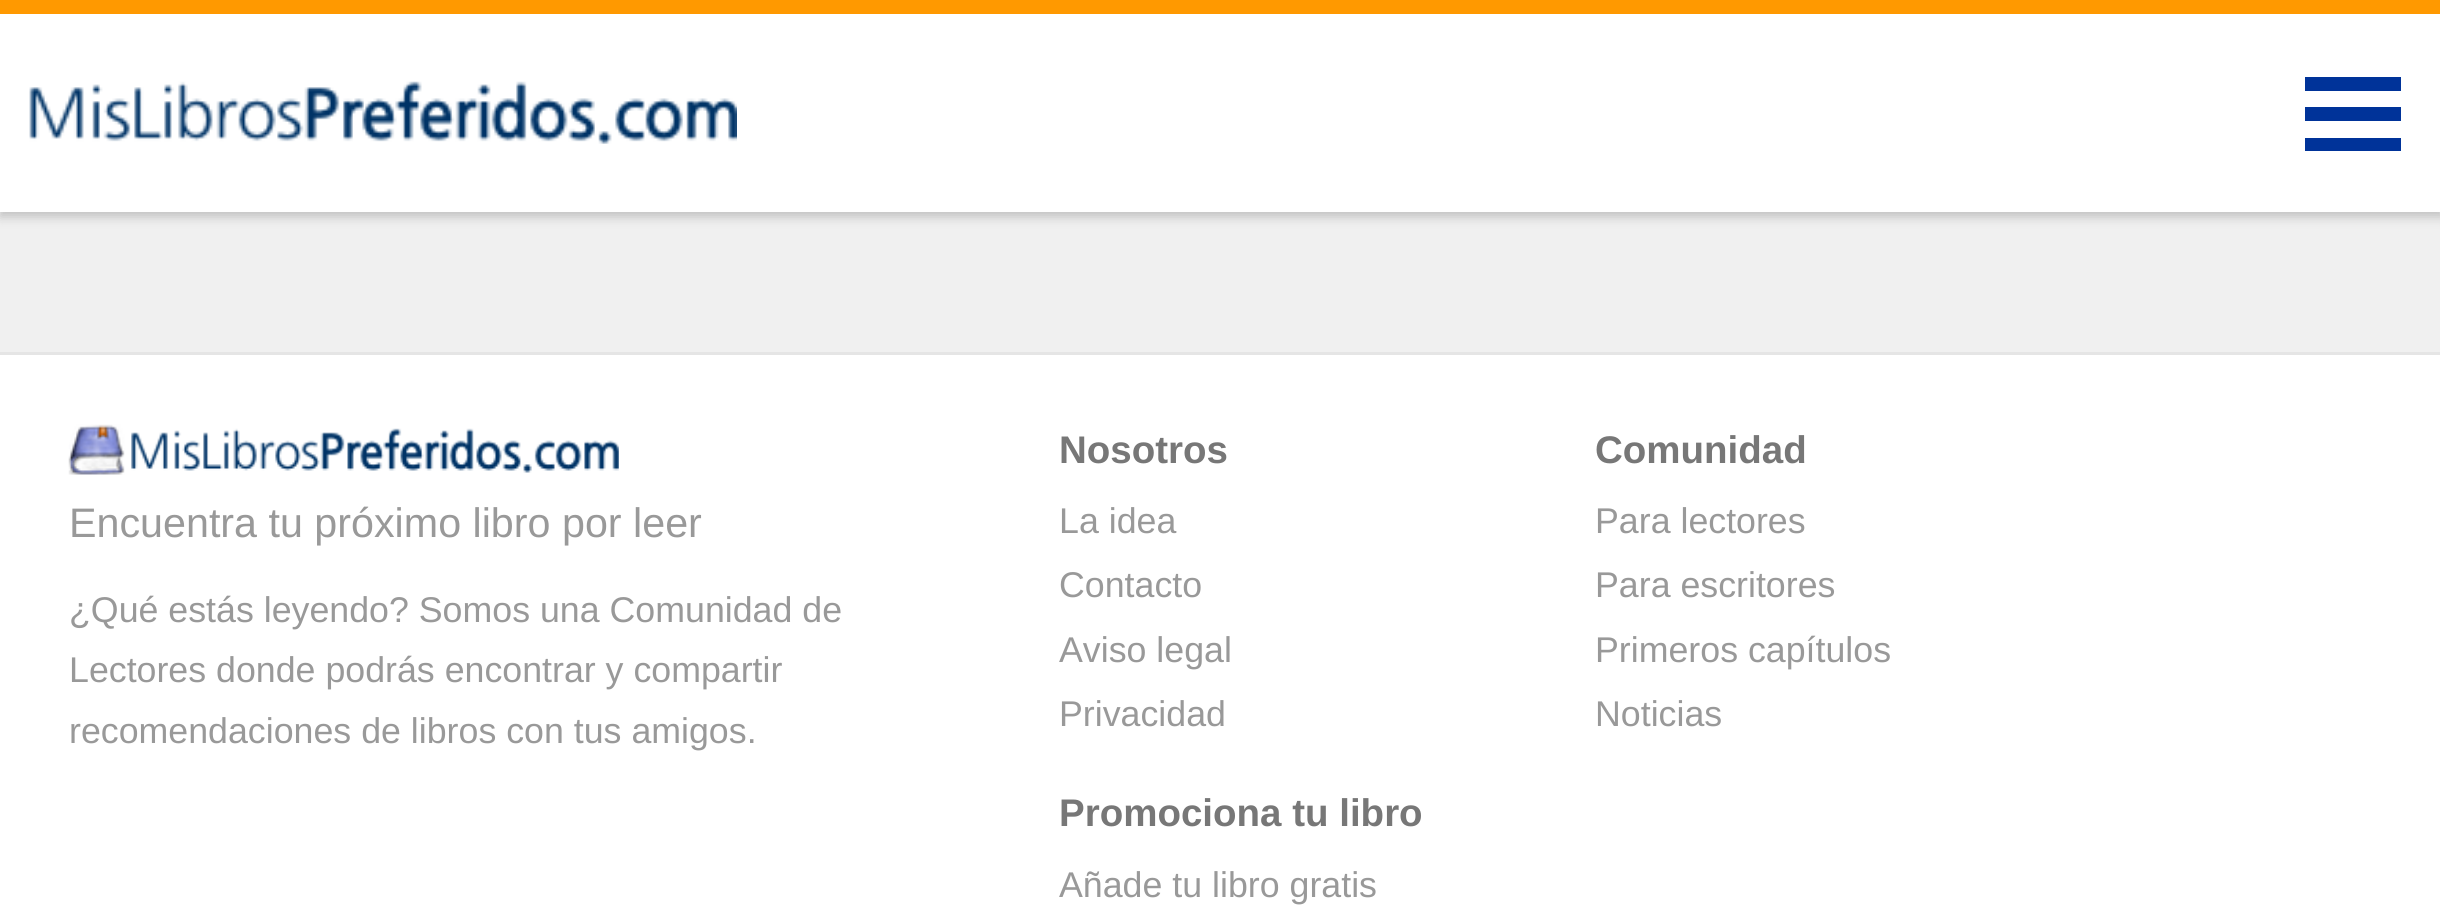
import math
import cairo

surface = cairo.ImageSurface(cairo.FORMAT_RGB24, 2440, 922)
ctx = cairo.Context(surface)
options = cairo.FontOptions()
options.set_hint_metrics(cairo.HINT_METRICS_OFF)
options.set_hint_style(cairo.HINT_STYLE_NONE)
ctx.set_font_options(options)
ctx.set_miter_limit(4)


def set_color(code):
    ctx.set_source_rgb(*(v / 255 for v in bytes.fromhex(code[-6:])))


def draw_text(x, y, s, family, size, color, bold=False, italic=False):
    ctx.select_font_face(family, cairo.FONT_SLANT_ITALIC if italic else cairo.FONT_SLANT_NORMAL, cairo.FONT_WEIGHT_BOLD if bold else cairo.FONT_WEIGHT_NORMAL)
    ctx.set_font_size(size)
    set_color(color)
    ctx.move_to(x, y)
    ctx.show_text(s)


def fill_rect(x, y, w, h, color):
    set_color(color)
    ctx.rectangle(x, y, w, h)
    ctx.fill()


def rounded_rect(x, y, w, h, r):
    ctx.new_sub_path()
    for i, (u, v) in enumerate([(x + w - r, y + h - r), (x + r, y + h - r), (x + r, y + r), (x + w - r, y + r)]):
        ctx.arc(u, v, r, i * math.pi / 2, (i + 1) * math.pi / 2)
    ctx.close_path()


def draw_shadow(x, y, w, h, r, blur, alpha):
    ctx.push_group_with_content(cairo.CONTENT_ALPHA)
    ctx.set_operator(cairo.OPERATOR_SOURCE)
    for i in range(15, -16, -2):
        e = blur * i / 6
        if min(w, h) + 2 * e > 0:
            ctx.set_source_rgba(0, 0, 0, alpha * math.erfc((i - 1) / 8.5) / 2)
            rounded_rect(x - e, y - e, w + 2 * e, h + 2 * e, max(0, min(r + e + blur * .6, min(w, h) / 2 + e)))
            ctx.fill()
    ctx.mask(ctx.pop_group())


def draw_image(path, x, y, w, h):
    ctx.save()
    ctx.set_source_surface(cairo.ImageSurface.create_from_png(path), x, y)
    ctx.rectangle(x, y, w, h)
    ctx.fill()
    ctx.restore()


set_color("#f0f0f0")
ctx.paint()
set_color("#000000")
draw_shadow(0, 6, 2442, 211, 0, 5.5, 0.2)
fill_rect(0, 14, 2440, 198, "#ffffff")
fill_rect(0, 0, 2440, 14, "#ff9900")
draw_image("assets/img1.png", 29, 81, 708, 63)
fill_rect(2305, 77, 96, 14, "#003399")
fill_rect(2305, 107, 96, 14, "#003399")
fill_rect(2305, 138, 96, 13, "#003399")
fill_rect(0, 355, 2440, 567, "#ffffff")
fill_rect(0, 352, 2440, 3, "#e5e5e5")
draw_image("assets/img2.png", 68, 424, 551, 51)
draw_text(69, 537, "Encuentra tu próximo libro por leer", "Liberation Sans", 41.25, "#999999")
draw_text(69, 622, "¿Qué estás leyendo? Somos una Comunidad de", "Liberation Sans", 35.75, "#999999")
draw_text(69, 682, "Lectores donde podrás encontrar y compartir", "Liberation Sans", 35.75, "#999999")
draw_text(69, 743, "recomendaciones de libros con tus amigos.", "Liberation Sans", 35.75, "#999999")
draw_text(1059, 463, "Nosotros", "Liberation Sans", 38.5, "#777777", bold=True)
draw_text(1059, 533, "La idea", "Liberation Sans", 35.75, "#999999")
draw_text(1059, 597, "Contacto", "Liberation Sans", 35.75, "#999999")
draw_text(1059, 662, "Aviso legal", "Liberation Sans", 35.75, "#999999")
draw_text(1059, 726, "Privacidad", "Liberation Sans", 35.75, "#999999")
draw_text(1595, 463, "Comunidad", "Liberation Sans", 38.5, "#777777", bold=True)
draw_text(1595, 533, "Para lectores", "Liberation Sans", 35.75, "#999999")
draw_text(1595, 597, "Para escritores", "Liberation Sans", 35.75, "#999999")
draw_text(1595, 662, "Primeros capítulos", "Liberation Sans", 35.75, "#999999")
draw_text(1595, 726, "Noticias", "Liberation Sans", 35.75, "#999999")
draw_text(1059, 826, "Promociona tu libro", "Liberation Sans", 38.5, "#777777", bold=True)
draw_text(1059, 897, "Añade tu libro gratis", "Liberation Sans", 35.75, "#999999")
surface.write_to_png("output.png")
